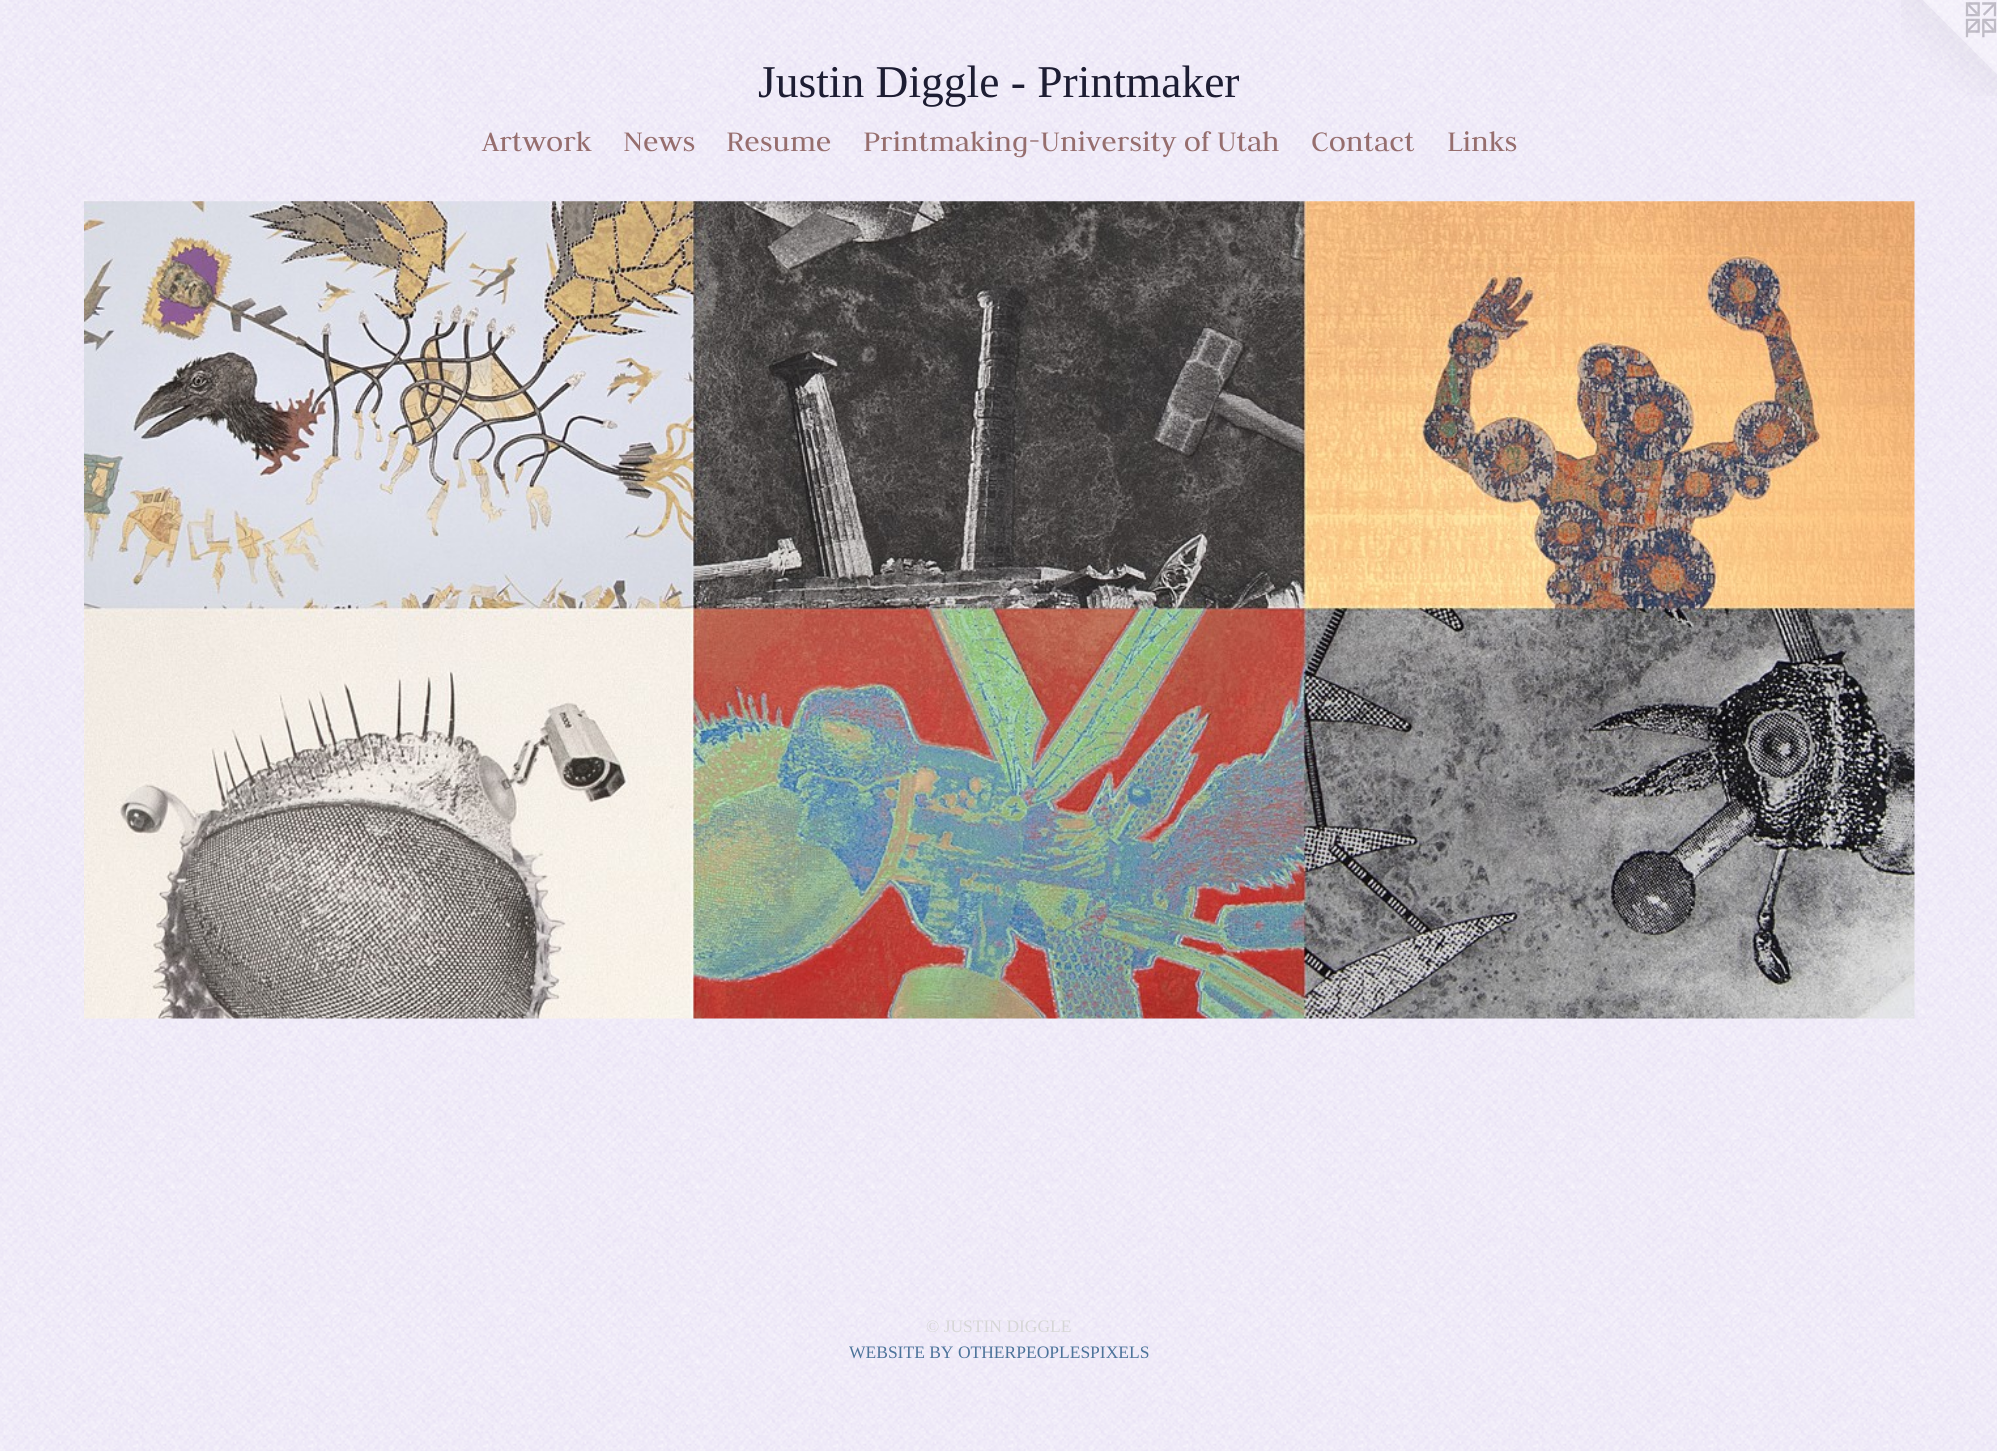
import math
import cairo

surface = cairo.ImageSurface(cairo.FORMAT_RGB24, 1997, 1451)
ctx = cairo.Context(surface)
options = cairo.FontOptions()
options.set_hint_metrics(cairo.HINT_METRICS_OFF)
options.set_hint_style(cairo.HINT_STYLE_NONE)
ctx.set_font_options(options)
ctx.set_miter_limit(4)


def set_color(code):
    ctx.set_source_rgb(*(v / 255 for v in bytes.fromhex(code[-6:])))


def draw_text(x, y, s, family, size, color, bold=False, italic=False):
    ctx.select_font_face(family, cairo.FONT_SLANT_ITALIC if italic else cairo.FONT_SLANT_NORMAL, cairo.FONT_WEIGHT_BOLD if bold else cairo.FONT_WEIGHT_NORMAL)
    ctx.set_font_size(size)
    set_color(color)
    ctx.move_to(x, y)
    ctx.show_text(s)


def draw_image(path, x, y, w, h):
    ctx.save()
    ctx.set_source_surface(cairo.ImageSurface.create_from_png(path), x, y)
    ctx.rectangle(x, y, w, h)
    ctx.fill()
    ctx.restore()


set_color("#ffffff")
ctx.paint()
draw_image("assets/img1.png", 0, 0, 1997, 1451)
draw_text(758, 97, "Justin Diggle - Printmaker", "Liberation Serif", 45.5, "#1d1d33")
draw_image("assets/img2.png", 1901, 0, 96, 96)
draw_text(482, 151, "Artwork", "Judson", 31.5, "#966e6e")
draw_text(623, 151, "News", "Judson", 31.5, "#966e6e")
draw_text(726, 151, "Resume", "Judson", 31.5, "#966e6e")
draw_text(863, 151, "Printmaking-University of Utah", "Judson", 31.5, "#966e6e")
draw_text(1311, 151, "Contact", "Judson", 31.5, "#966e6e")
draw_text(1447, 151, "Links", "Judson", 31.5, "#966e6e")
draw_image("assets/img3.png", 84, 201, 1831, 818)
draw_text(926, 1332, "© JUSTIN DIGGLE", "Liberation Serif", 17.5, "#d6d6d6")
draw_text(849, 1358, "WEBSITE BY OTHERPEOPLESPIXELS", "Liberation Serif", 17.5, "#4c739a")
surface.write_to_png("output.png")
